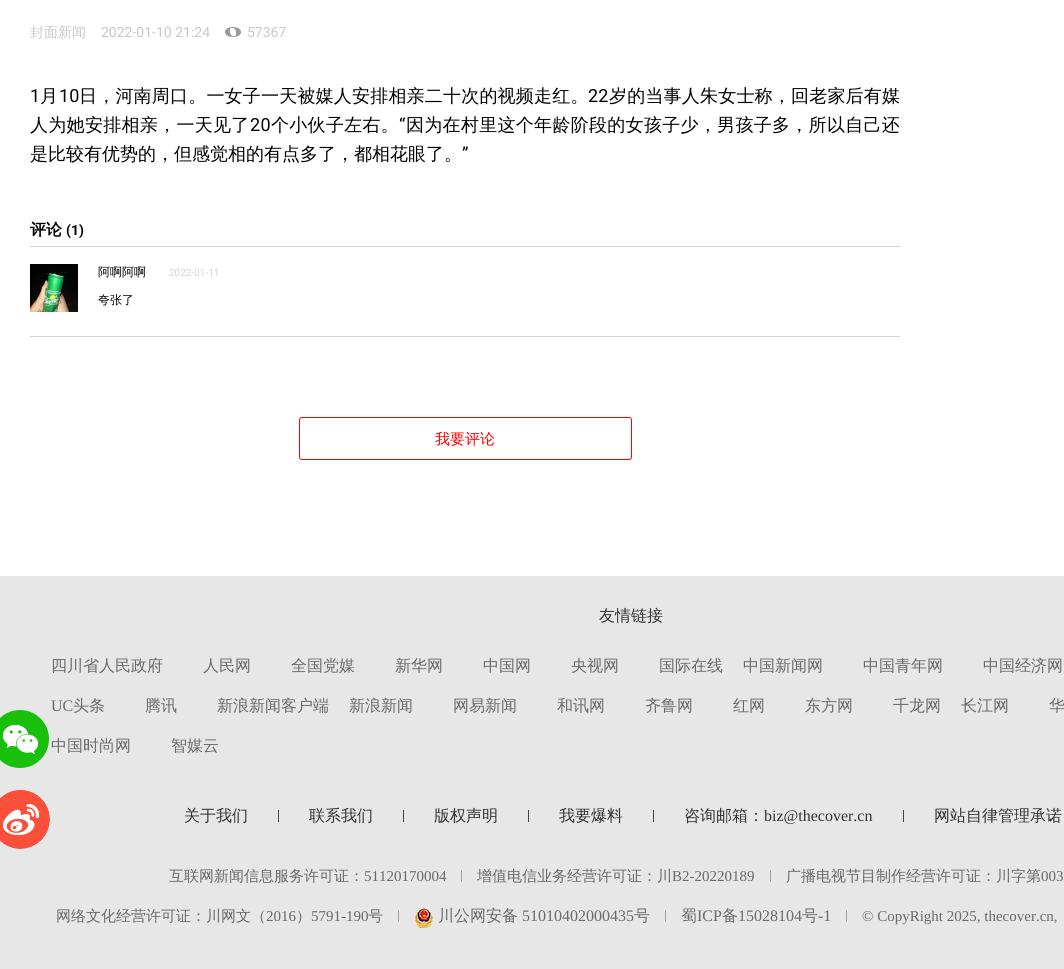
import math
import cairo

surface = cairo.ImageSurface(cairo.FORMAT_RGB24, 1064, 969)
ctx = cairo.Context(surface)
options = cairo.FontOptions()
options.set_hint_metrics(cairo.HINT_METRICS_OFF)
options.set_hint_style(cairo.HINT_STYLE_NONE)
ctx.set_font_options(options)
ctx.set_miter_limit(4)


def set_color(code):
    ctx.set_source_rgb(*(v / 255 for v in bytes.fromhex(code[-6:])))


def draw_text(x, y, s, family, size, color, bold=False, italic=False):
    ctx.select_font_face(family, cairo.FONT_SLANT_ITALIC if italic else cairo.FONT_SLANT_NORMAL, cairo.FONT_WEIGHT_BOLD if bold else cairo.FONT_WEIGHT_NORMAL)
    ctx.set_font_size(size)
    set_color(color)
    ctx.move_to(x, y)
    ctx.show_text(s)


def draw_spaced(x, y, s, letter, word):
    ctx.move_to(x, y)
    for ch in s:
        ctx.show_text(ch)
        ctx.rel_move_to(letter + word * (ch == ' '), 0)


def fill_rect(x, y, w, h, color):
    set_color(color)
    ctx.rectangle(x, y, w, h)
    ctx.fill()


def rounded_rect(x, y, w, h, r):
    ctx.new_sub_path()
    for i, (u, v) in enumerate([(x + w - r, y + h - r), (x + r, y + h - r), (x + r, y + r), (x + w - r, y + r)]):
        ctx.arc(u, v, r, i * math.pi / 2, (i + 1) * math.pi / 2)
    ctx.close_path()


def draw_image(path, x, y, w, h):
    ctx.save()
    ctx.set_source_surface(cairo.ImageSurface.create_from_png(path), x, y)
    ctx.rectangle(x, y, w, h)
    ctx.fill()
    ctx.restore()


set_color("#ffffff")
ctx.paint()
draw_text(30, 37, "封面新闻", "WenQuanYi Zen Hei Medium", 14, "#c8c8c8")
draw_text(101, 37, "2022-01-10 21:24", "Roboto", 14, "#c8c8c8")
draw_image("assets/img1.png", 225, 27, 16, 10)
draw_text(247, 37, "57367", "Roboto", 14, "#c8c8c8")
ctx.set_font_size(18)
set_color("#000000")
draw_spaced(30, 102, "1", 0.2, 0)
ctx.select_font_face("WenQuanYi Zen Hei Medium")
draw_spaced(40, 102, "月", 0.2, 0)
ctx.select_font_face("Roboto")
draw_spaced(59, 102, "10", 0.2, 0)
ctx.select_font_face("WenQuanYi Zen Hei Medium")
draw_spaced(79, 102, "日，河南周口。一女子一天被媒人安排相亲二十次的视频走红。", 0.2, 0)
ctx.select_font_face("Roboto")
draw_spaced(588, 102, "22", 0.2, 0)
ctx.select_font_face("WenQuanYi Zen Hei Medium")
draw_spaced(609, 102, "岁的当事人朱女士称，回老家后有媒", 0.2, 0)
draw_spaced(30, 131, "人为她安排相亲，一天见了", 0.3, 0)
ctx.select_font_face("Roboto")
draw_spaced(250, 131, "20", 0.3, 0)
ctx.select_font_face("WenQuanYi Zen Hei Medium")
draw_spaced(271, 131, "个小伙子左右。", 0.3, 0)
ctx.select_font_face("Roboto")
draw_spaced(399, 131, "“", 0.3, 0)
ctx.select_font_face("WenQuanYi Zen Hei Medium")
draw_spaced(406, 131, "因为在村里这个年龄阶段的女孩子少，男孩子多，所以自己还", 0.3, 0)
draw_text(30, 160, "是比较有优势的，但感觉相的有点多了，都相花眼了。", "WenQuanYi Zen Hei Medium", 18, "#000000")
draw_text(462, 160, "”", "Roboto", 18, "#000000")
fill_rect(30, 246, 870, 1, "#d3d3d3")
draw_text(30, 235, "评论", "WenQuanYi Zen Hei", 16, "#000000", bold=True)
draw_text(66, 235, "(1)", "Roboto", 14, "#000000", bold=True)
fill_rect(30, 336, 870, 1, "#d3d3d3")
draw_image("assets/img2.png", 30, 264, 48, 48)
draw_text(98, 276, "阿啊阿啊", "WenQuanYi Zen Hei Medium", 12, "#000000")
draw_text(169, 276, "2022-01-11", "Roboto", 10, "#d3d3d3")
draw_text(98, 304, "夸张了", "WenQuanYi Zen Hei Medium", 12, "#000000")
rounded_rect(299.5, 417.5, 332, 42, 2.5)
set_color("#ff0000")
ctx.set_line_width(1)
ctx.stroke()
draw_text(435, 444, "我要评论", "WenQuanYi Zen Hei Medium", 15, "#ff0000")
fill_rect(0, 576, 1064, 393, "#e7e7e7")
draw_image("assets/img3.png", 0, 710, 49, 58)
draw_image("assets/img4.png", 0, 790, 50, 59)
draw_text(599, 621, "友情链接", "WenQuanYi Zen Hei Medium", 16, "#333333")
draw_text(51, 671, "四川省人民政府", "WenQuanYi Zen Hei Medium", 16, "#696969")
draw_text(203, 671, "人民网", "WenQuanYi Zen Hei Medium", 16, "#696969")
draw_text(291, 671, "全国党媒", "WenQuanYi Zen Hei Medium", 16, "#696969")
draw_text(395, 671, "新华网", "WenQuanYi Zen Hei Medium", 16, "#696969")
draw_text(483, 671, "中国网", "WenQuanYi Zen Hei Medium", 16, "#696969")
draw_text(571, 671, "央视网", "WenQuanYi Zen Hei Medium", 16, "#696969")
draw_text(659, 671, "国际在线", "WenQuanYi Zen Hei Medium", 16, "#696969")
draw_text(743, 671, "中国新闻网", "WenQuanYi Zen Hei Medium", 16, "#696969")
draw_text(863, 671, "中国青年网", "WenQuanYi Zen Hei Medium", 16, "#696969")
draw_text(983, 671, "中国经济网", "WenQuanYi Zen Hei Medium", 16, "#696969")
draw_text(51, 711, "UC", "Liberation Serif", 16, "#696969")
draw_text(73, 711, "头条", "WenQuanYi Zen Hei Medium", 16, "#696969")
draw_text(145, 711, "腾讯", "WenQuanYi Zen Hei Medium", 16, "#696969")
draw_text(217, 711, "新浪新闻客户端", "WenQuanYi Zen Hei Medium", 16, "#696969")
draw_text(349, 711, "新浪新闻", "WenQuanYi Zen Hei Medium", 16, "#696969")
draw_text(453, 711, "网易新闻", "WenQuanYi Zen Hei Medium", 16, "#696969")
draw_text(557, 711, "和讯网", "WenQuanYi Zen Hei Medium", 16, "#696969")
draw_text(645, 711, "齐鲁网", "WenQuanYi Zen Hei Medium", 16, "#696969")
draw_text(733, 711, "红网", "WenQuanYi Zen Hei Medium", 16, "#696969")
draw_text(805, 711, "东方网", "WenQuanYi Zen Hei Medium", 16, "#696969")
draw_text(893, 711, "千龙网", "WenQuanYi Zen Hei Medium", 16, "#696969")
draw_text(961, 711, "长江网", "WenQuanYi Zen Hei Medium", 16, "#696969")
draw_text(1049, 711, "华", "WenQuanYi Zen Hei Medium", 16, "#696969")
draw_text(51, 751, "中国时尚网", "WenQuanYi Zen Hei Medium", 16, "#696969")
draw_text(171, 751, "智媒云", "WenQuanYi Zen Hei Medium", 16, "#696969")
draw_text(184, 821, "关于我们", "WenQuanYi Zen Hei Medium", 16, "#333333")
fill_rect(278, 810, 1, 12, "#434343")
draw_text(309, 821, "联系我们", "WenQuanYi Zen Hei Medium", 16, "#333333")
fill_rect(403, 810, 1, 12, "#434343")
draw_text(434, 821, "版权声明", "WenQuanYi Zen Hei Medium", 16, "#333333")
fill_rect(528, 810, 1, 12, "#434343")
draw_text(559, 821, "我要爆料", "WenQuanYi Zen Hei Medium", 16, "#333333")
fill_rect(653, 810, 1, 12, "#434343")
draw_text(684, 821, "咨询邮箱：", "WenQuanYi Zen Hei Medium", 16, "#333333")
draw_text(764, 821, "biz@thecover.cn", "Liberation Serif", 16, "#333333")
fill_rect(903, 810, 1, 12, "#434343")
draw_text(934, 821, "网站自律管理承诺", "WenQuanYi Zen Hei Medium", 16, "#333333")
draw_text(169, 881, "互联网新闻信息服务许可证：", "WenQuanYi Zen Hei Medium", 15, "#696969")
draw_text(364, 881, "51120170004", "Liberation Serif", 15, "#696969")
fill_rect(461, 870, 1, 12, "#a0a0a0")
draw_text(477, 881, "增值电信业务经营许可证：川", "WenQuanYi Zen Hei Medium", 15, "#696969")
draw_text(672, 881, "B2-20220189", "Liberation Serif", 15, "#696969")
fill_rect(770, 870, 1, 12, "#a0a0a0")
draw_text(786, 881, "广播电视节目制作经营许可证：川字第", "WenQuanYi Zen Hei Medium", 15, "#696969")
draw_text(1041, 881, "003", "Liberation Serif", 15, "#696969")
draw_text(56, 921, "网络文化经营许可证：川网文（", "WenQuanYi Zen Hei Medium", 15, "#696969")
draw_text(266, 921, "2016", "Liberation Serif", 15, "#696969")
draw_text(296, 921, "）", "WenQuanYi Zen Hei Medium", 15, "#696969")
draw_text(311, 921, "5791-190", "Liberation Serif", 15, "#696969")
draw_text(368, 921, "号", "WenQuanYi Zen Hei Medium", 15, "#696969")
fill_rect(398, 910, 1, 12, "#a0a0a0")
draw_image("assets/img5.png", 415, 908, 18, 20)
draw_text(438, 921, "川公网安备", "WenQuanYi Zen Hei Medium", 16, "#696969")
draw_text(522, 921, "51010402000435", "Liberation Serif", 16, "#696969")
draw_text(634, 921, "号", "WenQuanYi Zen Hei Medium", 16, "#696969")
fill_rect(665, 910, 1, 12, "#a0a0a0")
draw_text(681, 921, "蜀", "WenQuanYi Zen Hei Medium", 16, "#696969")
draw_text(697, 921, "ICP", "Liberation Serif", 16, "#696969")
draw_text(722, 921, "备", "WenQuanYi Zen Hei Medium", 16, "#696969")
draw_text(738, 921, "15028104", "Liberation Serif", 16, "#696969")
draw_text(802, 921, "号", "WenQuanYi Zen Hei Medium", 16, "#696969")
draw_text(818, 921, "-1", "Liberation Serif", 16, "#696969")
fill_rect(846, 910, 1, 12, "#a0a0a0")
draw_text(862, 921, "© CopyRight 2025, thecover.cn,", "Liberation Serif", 15, "#696969")
surface.write_to_png("output.png")
